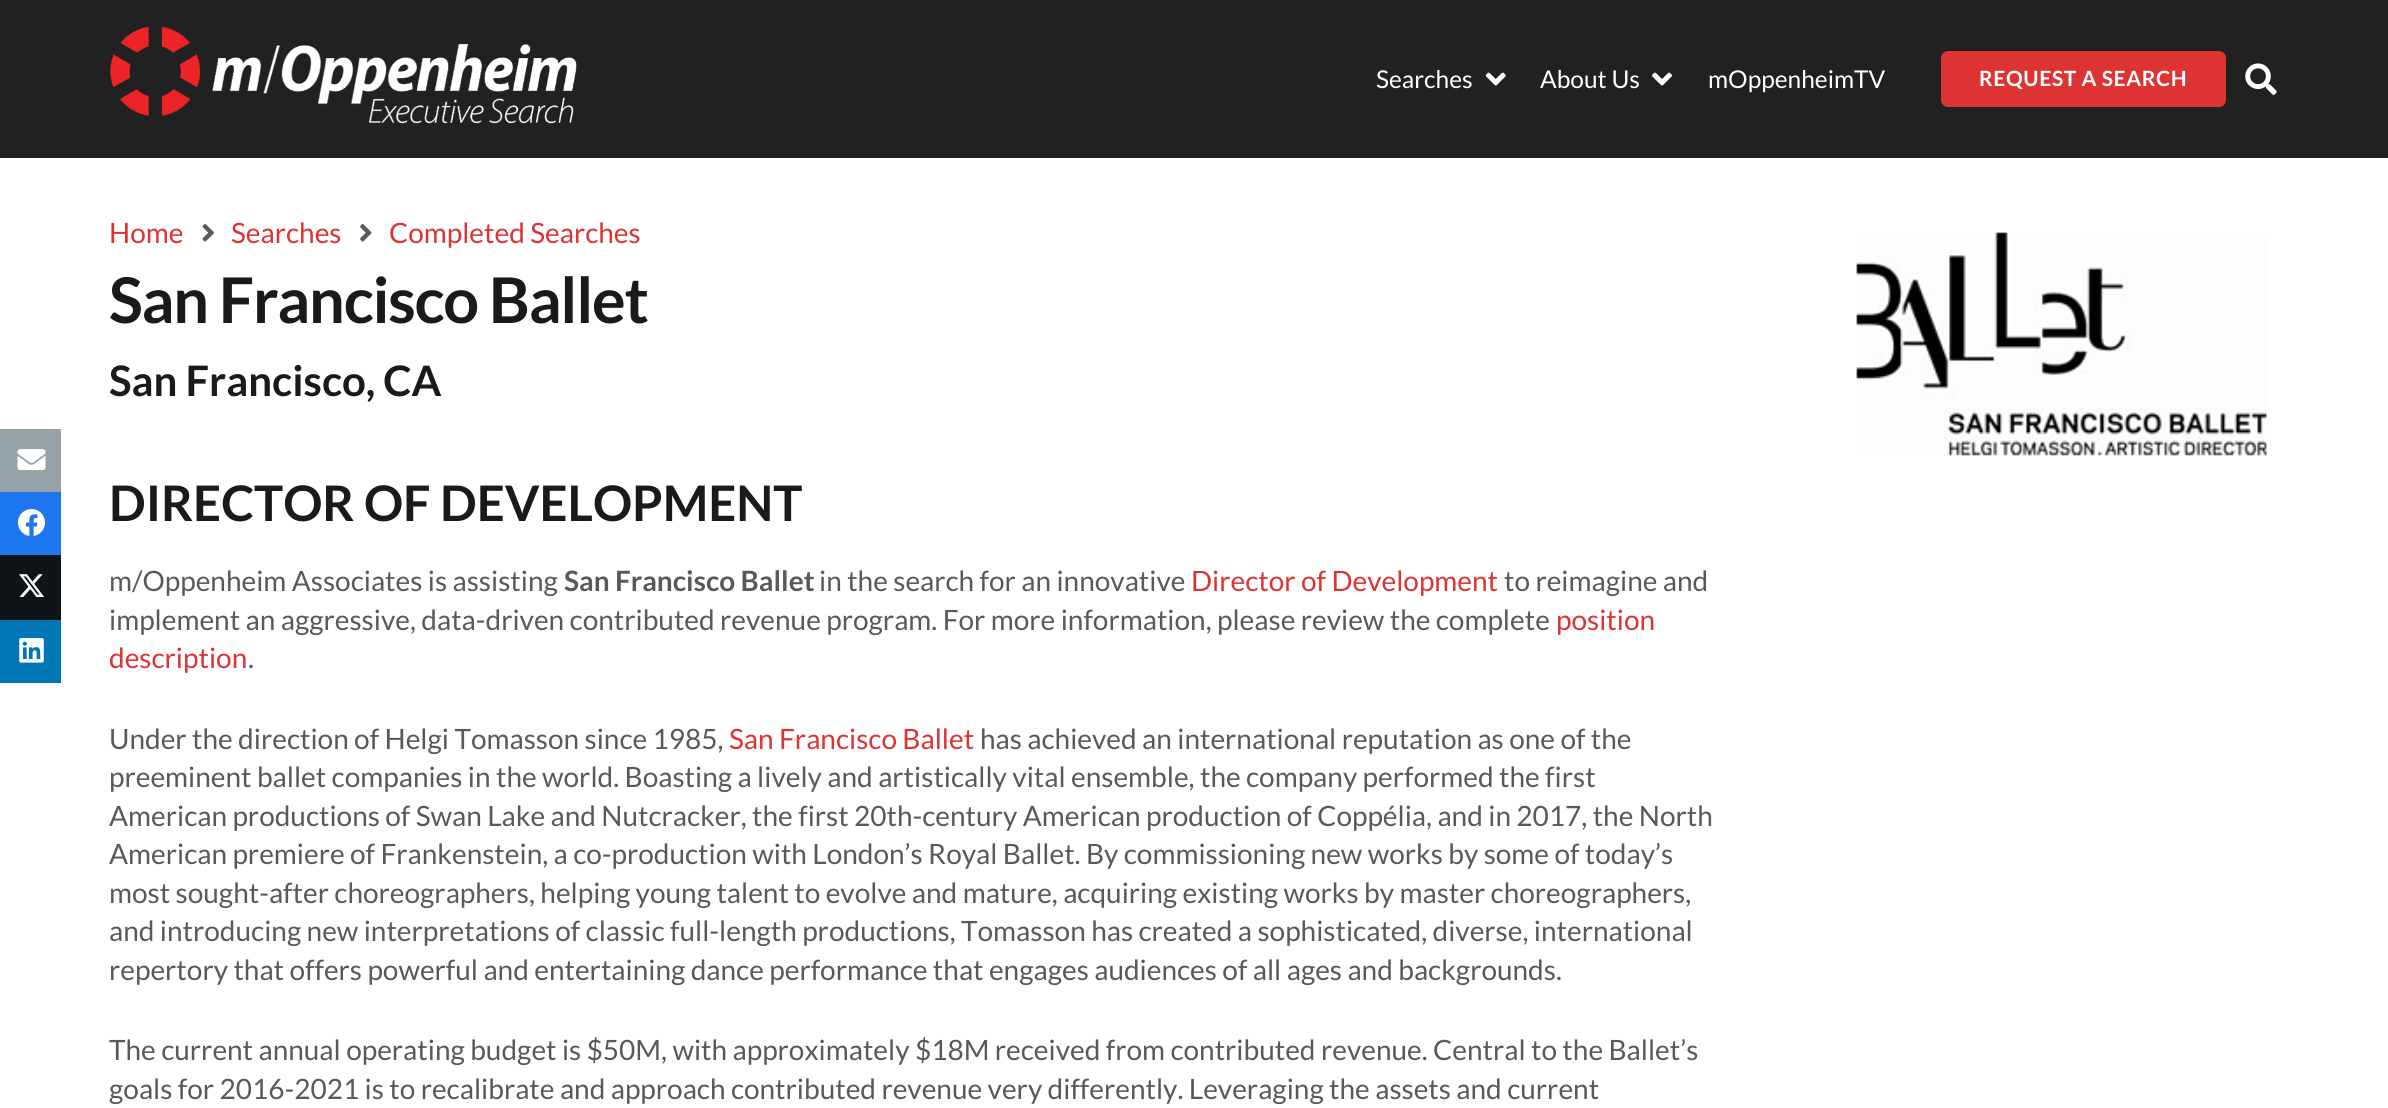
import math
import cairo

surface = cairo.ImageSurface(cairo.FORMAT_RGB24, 2388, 1108)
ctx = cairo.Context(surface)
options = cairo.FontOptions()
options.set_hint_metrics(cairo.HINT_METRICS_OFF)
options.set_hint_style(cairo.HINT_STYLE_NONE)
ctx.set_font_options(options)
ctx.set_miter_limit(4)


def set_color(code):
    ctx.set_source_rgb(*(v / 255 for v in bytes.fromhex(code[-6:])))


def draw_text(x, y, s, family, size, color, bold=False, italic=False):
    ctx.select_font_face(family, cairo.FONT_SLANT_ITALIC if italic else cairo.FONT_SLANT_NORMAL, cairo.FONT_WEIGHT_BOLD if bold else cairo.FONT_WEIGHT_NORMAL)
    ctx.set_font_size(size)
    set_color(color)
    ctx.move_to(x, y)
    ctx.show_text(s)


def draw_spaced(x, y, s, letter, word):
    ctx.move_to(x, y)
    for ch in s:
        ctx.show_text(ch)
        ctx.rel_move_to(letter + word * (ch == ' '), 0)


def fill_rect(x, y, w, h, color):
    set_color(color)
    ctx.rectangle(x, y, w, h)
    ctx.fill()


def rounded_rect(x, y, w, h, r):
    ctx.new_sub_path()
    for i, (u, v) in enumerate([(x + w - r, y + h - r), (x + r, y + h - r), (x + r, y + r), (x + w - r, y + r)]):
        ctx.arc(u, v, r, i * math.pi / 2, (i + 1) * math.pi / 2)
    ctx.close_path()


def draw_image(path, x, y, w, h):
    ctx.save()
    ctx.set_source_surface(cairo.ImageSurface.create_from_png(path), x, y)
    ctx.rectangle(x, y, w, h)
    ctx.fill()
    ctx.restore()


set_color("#ffffff")
ctx.paint()
fill_rect(0, 0, 2388, 158, "#212121")
draw_image("assets/img1.png", 110, 26, 467, 98)
draw_text(1376, 88, "Searches", "Lato", 24.5, "#ffffff")
draw_image("assets/img2.png", 1485, 72, 21, 14)
draw_text(1540, 88, "About Us", "Lato", 24.5, "#ffffff")
draw_image("assets/img3.png", 1652, 72, 20, 14)
draw_text(1708, 88, "mOppenheimTV", "Lato", 24.5, "#ffffff")
set_color("#dd3333")
rounded_rect(1941, 51, 285, 56, 7)
ctx.fill()
ctx.select_font_face("Lato", cairo.FONT_SLANT_NORMAL, cairo.FONT_WEIGHT_BOLD)
ctx.set_font_size(21)
set_color("#ffffff")
draw_spaced(1979, 86, "REQUEST A SEARCH", 0.6, 0)
draw_image("assets/img4.png", 2245, 63, 32, 32)
draw_text(109, 243, "Home", "Lato", 28, "#dd3333")
draw_image("assets/img5.png", 202, 224, 12, 18)
draw_text(231, 243, "Searches", "Lato", 28, "#dd3333")
draw_image("assets/img6.png", 360, 224, 12, 18)
draw_text(389, 243, "Completed Searches", "Lato", 28, "#dd3333")
ctx.select_font_face("Lato", cairo.FONT_SLANT_NORMAL, cairo.FONT_WEIGHT_BOLD)
ctx.set_font_size(63)
set_color("#1a1a1a")
draw_spaced(109, 323, "San Francisco Ballet", -1.25, 0)
fill_rect(0, 429, 61, 63, "#96a2a8")
draw_image("assets/img7.png", 17, 449, 29, 22)
fill_rect(0, 492, 61, 63, "#1e77f0")
draw_image("assets/img8.png", 17, 509, 29, 27)
fill_rect(0, 555, 61, 65, "#0f1419")
draw_image("assets/img9.png", 19, 574, 25, 23)
fill_rect(0, 620, 61, 63, "#0077b5")
draw_image("assets/img10.png", 19, 638, 25, 25)
draw_text(109, 396, "San Francisco, CA", "Lato", 42, "#1a1a1a", bold=True)
draw_text(109, 521, "DIRECTOR OF DEVELOPMENT", "Lato", 49, "#1a1a1a", bold=True)
draw_text(109, 591, "m/Oppenheim Associates is assisting", "Lato", 28, "#58595b")
draw_text(564, 591, "San Francisco Ballet", "Lato", 28, "#58595b", bold=True)
draw_text(819, 591, "in the search for an innovative", "Lato", 28, "#58595b")
draw_text(1191, 591, "Director of Development", "Lato", 28, "#dd3333")
draw_text(1504, 591, "to reimagine and", "Lato", 28, "#58595b")
draw_text(109, 630, "implement an aggressive, data-driven contributed revenue program. For more information, please review the complete", "Lato", 28, "#58595b")
draw_text(1556, 630, "position", "Lato", 28, "#dd3333")
draw_text(109, 668, "description", "Lato", 28, "#dd3333")
draw_text(248, 668, ".", "Lato", 28, "#58595b")
draw_text(109, 749, "Under the direction of Helgi Tomasson since 1985,", "Lato", 28, "#58595b")
draw_text(729, 749, "San Francisco Ballet", "Lato", 28, "#dd3333")
draw_text(980, 749, "has achieved an international reputation as one of the", "Lato", 28, "#58595b")
draw_text(109, 787, "preeminent ballet companies in the world. Boasting a lively and artistically vital ensemble, the company performed the first", "Lato", 28, "#58595b")
draw_text(109, 826, "American productions of Swan Lake and Nutcracker, the first 20th-century American production of Coppélia, and in 2017, the North", "Lato", 28, "#58595b")
draw_text(109, 864, "American premiere of Frankenstein, a co-production with London’s Royal Ballet. By commissioning new works by some of today’s", "Lato", 28, "#58595b")
draw_text(109, 903, "most sought-after choreographers, helping young talent to evolve and mature, acquiring existing works by master choreographers,", "Lato", 28, "#58595b")
draw_text(109, 941, "and introducing new interpretations of classic full-length productions, Tomasson has created a sophisticated, diverse, international", "Lato", 28, "#58595b")
draw_text(109, 980, "repertory that offers powerful and entertaining dance performance that engages audiences of all ages and backgrounds.", "Lato", 28, "#58595b")
draw_text(109, 1060, "The current annual operating budget is $50M, with approximately $18M received from contributed revenue. Central to the Ballet’s", "Lato", 28, "#58595b")
draw_text(109, 1099, "goals for 2016-2021 is to recalibrate and approach contributed revenue very differently. Leveraging the assets and current", "Lato", 28, "#58595b")
draw_image("assets/img11.png", 1856, 232, 411, 224)
surface.write_to_png("output.png")
